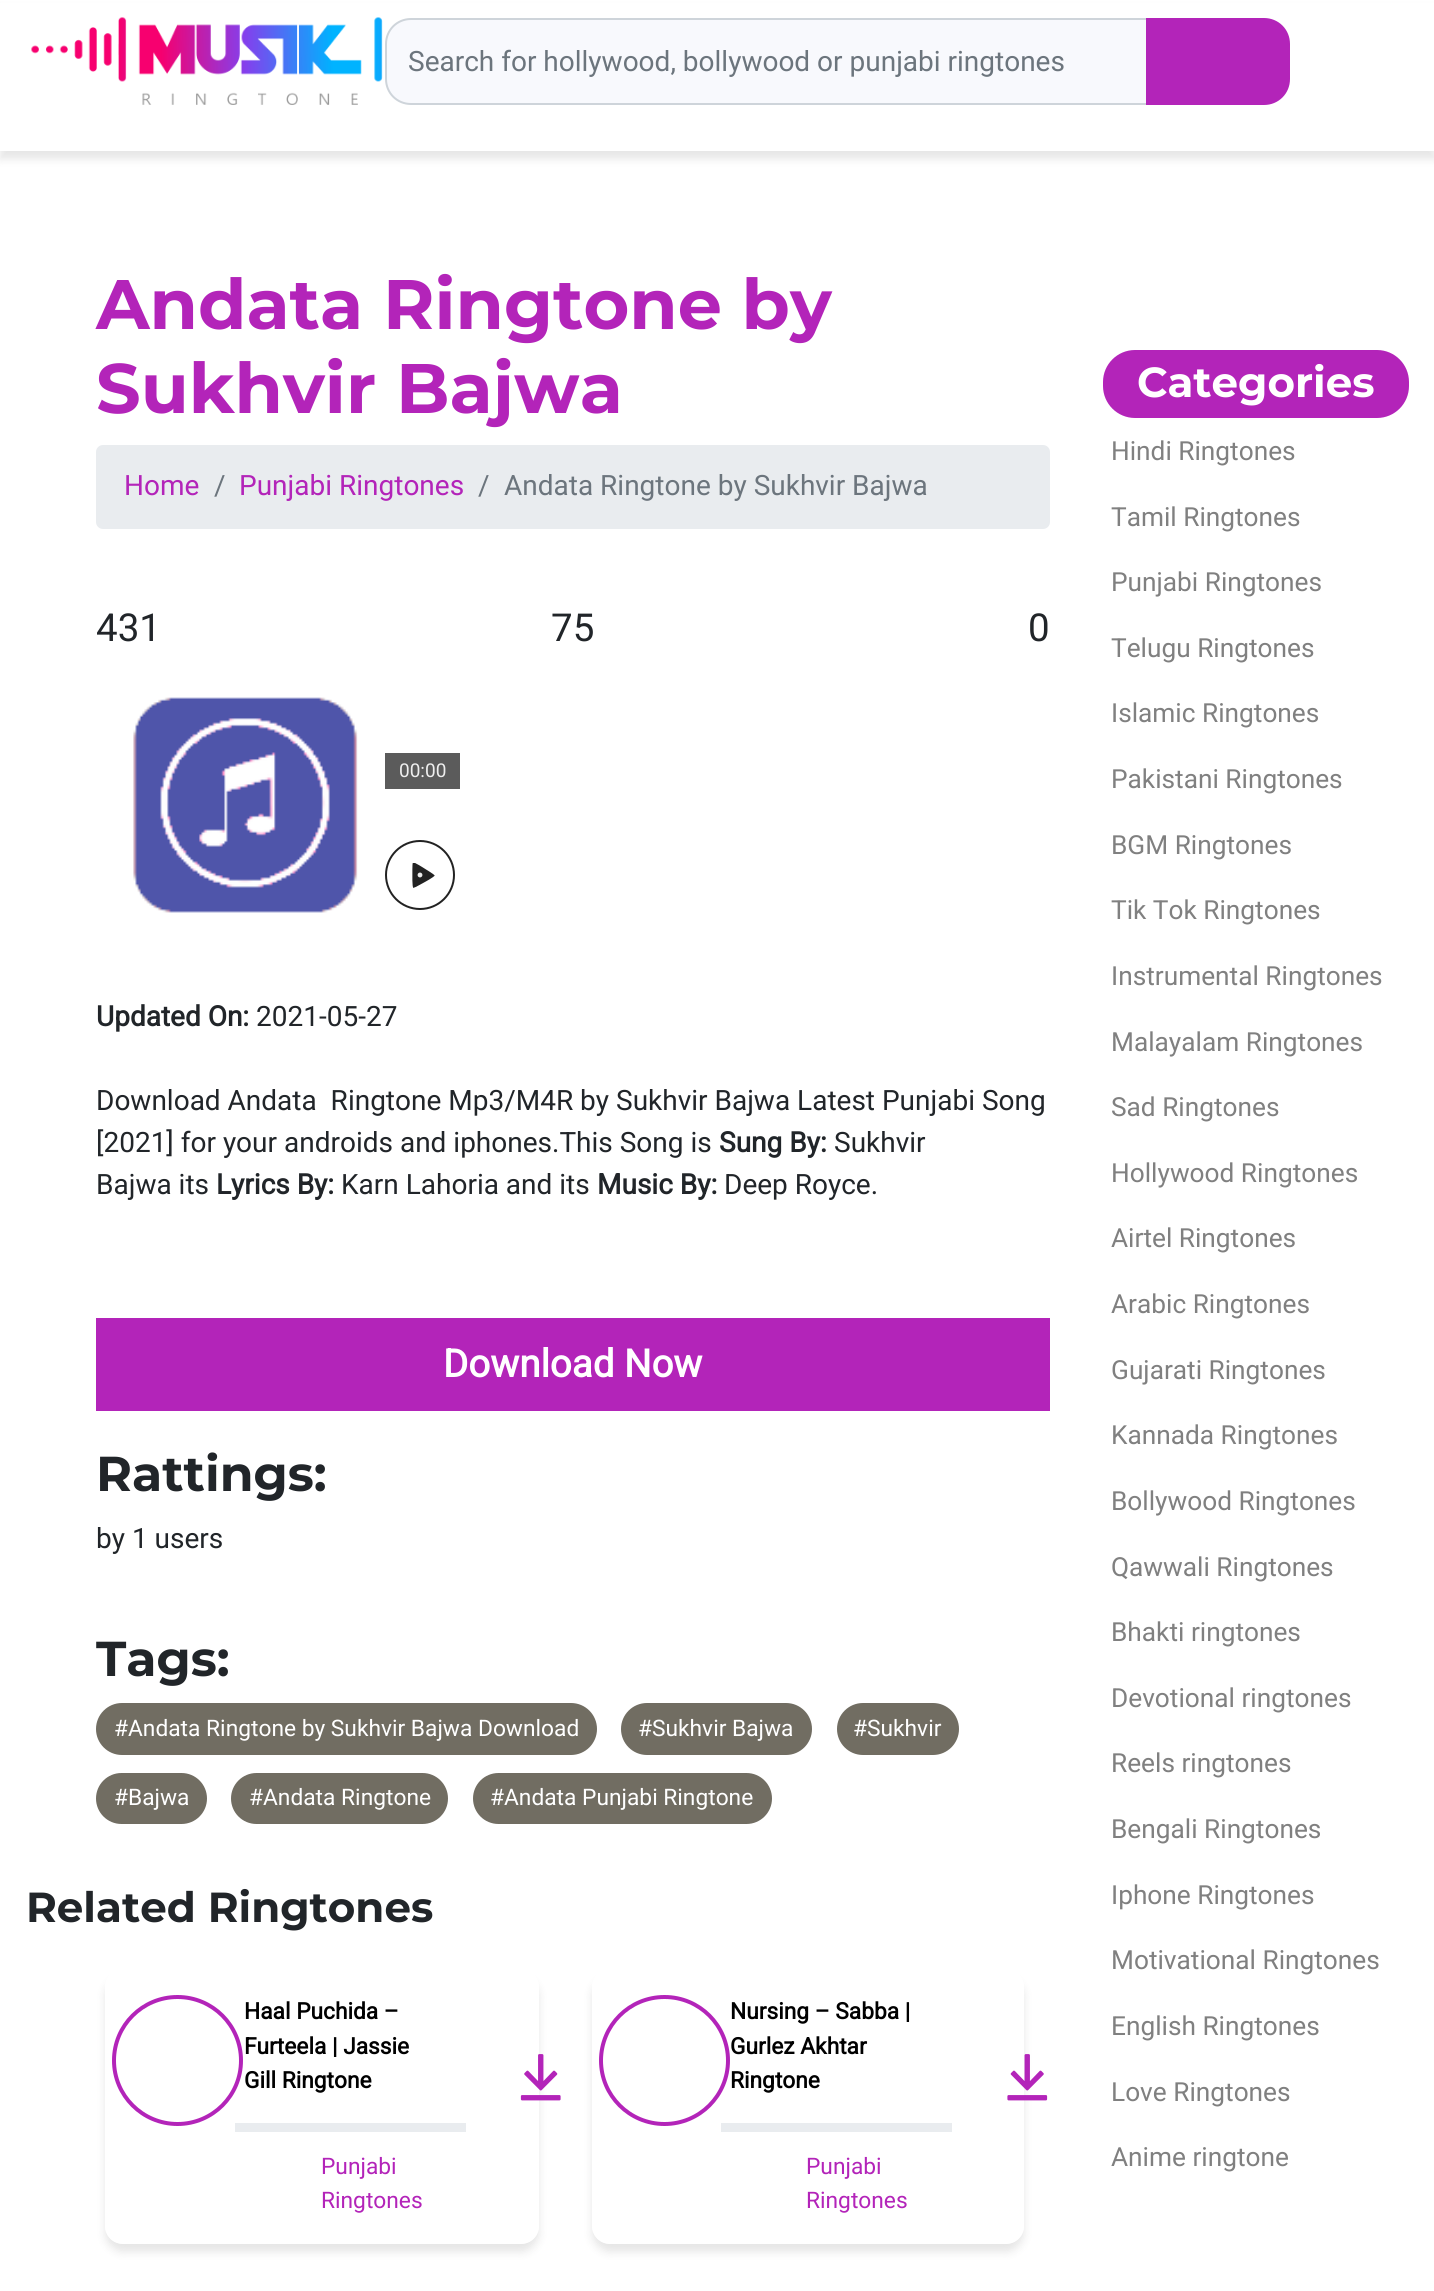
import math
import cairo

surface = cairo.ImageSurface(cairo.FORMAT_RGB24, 1434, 2291)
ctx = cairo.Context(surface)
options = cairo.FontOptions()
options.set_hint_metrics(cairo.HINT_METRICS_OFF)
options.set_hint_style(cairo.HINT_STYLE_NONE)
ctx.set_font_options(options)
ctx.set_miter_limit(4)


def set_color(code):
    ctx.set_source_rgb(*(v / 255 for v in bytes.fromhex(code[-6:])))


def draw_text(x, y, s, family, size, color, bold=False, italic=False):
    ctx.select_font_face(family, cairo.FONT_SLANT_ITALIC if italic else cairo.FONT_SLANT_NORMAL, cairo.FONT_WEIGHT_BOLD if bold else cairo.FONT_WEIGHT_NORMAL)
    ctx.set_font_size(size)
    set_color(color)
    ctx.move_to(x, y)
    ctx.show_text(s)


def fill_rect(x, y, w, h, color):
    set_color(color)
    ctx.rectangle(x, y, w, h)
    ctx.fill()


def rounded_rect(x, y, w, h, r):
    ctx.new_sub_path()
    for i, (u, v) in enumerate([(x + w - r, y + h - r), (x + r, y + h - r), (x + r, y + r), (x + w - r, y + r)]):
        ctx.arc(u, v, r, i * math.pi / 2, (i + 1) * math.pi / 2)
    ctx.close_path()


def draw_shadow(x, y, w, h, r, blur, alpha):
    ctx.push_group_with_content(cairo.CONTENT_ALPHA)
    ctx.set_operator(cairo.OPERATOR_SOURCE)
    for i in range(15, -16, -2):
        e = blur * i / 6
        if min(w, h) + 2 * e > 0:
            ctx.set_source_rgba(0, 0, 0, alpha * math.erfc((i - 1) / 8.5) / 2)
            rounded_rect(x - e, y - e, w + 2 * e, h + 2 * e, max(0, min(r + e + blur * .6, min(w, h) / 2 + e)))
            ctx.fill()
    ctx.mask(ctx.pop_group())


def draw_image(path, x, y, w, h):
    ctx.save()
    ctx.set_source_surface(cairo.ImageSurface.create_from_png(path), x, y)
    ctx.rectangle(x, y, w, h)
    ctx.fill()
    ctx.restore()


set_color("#ffffff")
ctx.paint()
set_color("#000000")
draw_shadow(0, 9, 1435, 150, 0, 4.5, 0.1)
fill_rect(0, 3, 1434, 148, "#ffffff")
draw_image("assets/img1.png", 31, 17, 352, 88)
set_color("#f8f9fd")
ctx.new_path()
ctx.move_to(411, 19)
ctx.line_to(1147, 19)
ctx.line_to(1147, 104)
ctx.line_to(411, 104)
ctx.curve_to(397, 104, 386, 93, 386, 79)
ctx.line_to(386, 44)
ctx.curve_to(386, 30, 397, 19, 411, 19)
ctx.close_path()
ctx.fill_preserve()
set_color("#ced4da")
ctx.stroke()
draw_text(408, 71, "Search for hollywood, bollywood or punjabi ringtones", "Roboto", 28, "#6c757d")
set_color("#b324b9")
ctx.new_path()
ctx.move_to(1147, 19)
ctx.line_to(1264, 19)
ctx.curve_to(1278, 19, 1289, 30, 1289, 44)
ctx.line_to(1289, 79)
ctx.curve_to(1289, 93, 1278, 104, 1264, 104)
ctx.line_to(1147, 104)
ctx.close_path()
ctx.fill_preserve()
ctx.stroke()
draw_text(96, 329, "Andata Ringtone by", "Montserrat Thin", 70, "#b324b9")
draw_text(96, 413, "Sukhvir Bajwa", "Montserrat Thin", 70, "#b324b9")
set_color("#e9ecef")
rounded_rect(96, 445, 954, 84, 7)
ctx.fill()
draw_text(124, 495, "Home", "Roboto", 28, "#b324b9")
draw_text(214, 495, "/", "Roboto", 28, "#6c757d")
draw_text(239, 495, "Punjabi Ringtones", "Roboto", 28, "#b324b9")
draw_text(478, 495, "/", "Roboto", 28, "#6c757d")
draw_text(504, 495, "Andata Ringtone by Sukhvir Bajwa", "Roboto", 28, "#6c757d")
draw_text(96, 641, "431", "Roboto", 38.5, "#212529")
draw_text(551, 641, "75", "Roboto", 38.5, "#212529")
draw_text(1028, 641, "0", "Roboto", 38.5, "#212529")
draw_image("assets/img2.png", 133, 697, 225, 216)
fill_rect(385, 753, 75, 36, "#5b5b5b")
draw_text(399, 777, "00:00", "Roboto", 19, "#eeeeee")
ctx.new_path()
ctx.arc(420, 875, 34, 0, 2 * math.pi)
set_color("#222222")
ctx.stroke()
draw_image("assets/img3.png", 412, 863, 23, 25)
ctx.arc(420, 875, 1.2, 0, 2 * math.pi)
set_color("#eaeaea")
ctx.set_line_width(2.4)
ctx.stroke()
ctx.arc(420, 875, 1.2, 0, 2 * math.pi)
ctx.set_source_rgba(1, 1, 1, 0.11)
ctx.stroke()
draw_text(96, 1026, "Updated On:", "Roboto", 28, "#212529", bold=True)
draw_text(256, 1026, "2021-05-27", "Roboto", 28, "#212529")
draw_text(96, 1110, "Download Andata  Ringtone Mp3/M4R by Sukhvir Bajwa Latest Punjabi Song", "Roboto", 28, "#212529")
draw_text(96, 1152, "[2021] for your androids and iphones.This Song is", "Roboto", 28, "#212529")
draw_text(719, 1152, "Sung By:", "Roboto", 28, "#212529", bold=True)
draw_text(834, 1152, "Sukhvir", "Roboto", 28, "#212529")
draw_text(96, 1194, "Bajwa its", "Roboto", 28, "#212529")
draw_text(216, 1194, "Lyrics By:", "Roboto", 28, "#212529", bold=True)
draw_text(341, 1194, "Karn Lahoria and its", "Roboto", 28, "#212529")
draw_text(597, 1194, "Music By:", "Roboto", 28, "#212529", bold=True)
draw_text(724, 1194, "Deep Royce.", "Roboto", 28, "#212529")
fill_rect(96, 1318, 954, 93, "#b324b9")
draw_text(443, 1377, "Download Now", "Roboto", 38.5, "#ffffff", bold=True)
draw_text(96, 1491, "Rattings:", "Montserrat Thin", 49, "#212529")
draw_text(96, 1548, "by 1 users", "Roboto", 28, "#212529")
draw_text(96, 1676, "Tags:", "Montserrat Thin", 49, "#212529")
set_color("#716d62")
rounded_rect(96, 1703, 501, 52, 26)
ctx.fill()
draw_text(114, 1736, "#Andata Ringtone by Sukhvir Bajwa Download", "Roboto", 22.75, "#ffffff")
set_color("#716d62")
rounded_rect(621, 1703, 191, 52, 26)
ctx.fill()
draw_text(638, 1736, "#Sukhvir Bajwa", "Roboto", 22.75, "#ffffff")
set_color("#716d62")
rounded_rect(837, 1703, 122, 52, 26)
ctx.fill()
draw_text(853, 1736, "#Sukhvir", "Roboto", 22.75, "#ffffff")
set_color("#716d62")
rounded_rect(96, 1773, 111, 51, 25.5)
ctx.fill()
draw_text(114, 1805, "#Bajwa", "Roboto", 22.75, "#ffffff")
set_color("#716d62")
rounded_rect(231, 1773, 217, 51, 25.5)
ctx.fill()
draw_text(249, 1805, "#Andata Ringtone", "Roboto", 22.75, "#ffffff")
set_color("#716d62")
rounded_rect(473, 1773, 299, 51, 25.5)
ctx.fill()
draw_text(490, 1805, "#Andata Punjabi Ringtone", "Roboto", 22.75, "#ffffff")
draw_text(26, 1922, "Related Ringtones", "Montserrat Thin", 42, "#212529")
ctx.save()
ctx.set_fill_rule(cairo.FILL_RULE_EVEN_ODD)
ctx.new_path()
ctx.move_to(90, 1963)
ctx.line_to(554, 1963)
ctx.line_to(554, 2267)
ctx.line_to(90, 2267)
ctx.close_path()
ctx.move_to(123, 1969)
ctx.line_to(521, 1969)
ctx.curve_to(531, 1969, 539, 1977, 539, 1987)
ctx.line_to(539, 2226)
ctx.curve_to(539, 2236, 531, 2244, 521, 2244)
ctx.line_to(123, 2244)
ctx.curve_to(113, 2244, 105, 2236, 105, 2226)
ctx.line_to(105, 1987)
ctx.curve_to(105, 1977, 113, 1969, 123, 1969)
ctx.close_path()
ctx.clip()
set_color("#000000")
draw_shadow(105, 1978, 434, 274, 18, 4.5, 0.1)
ctx.restore()
ctx.arc(177.5, 2060.5, 63.5, 0, 2 * math.pi)
set_color("#b324b9")
ctx.set_line_width(4)
ctx.stroke()
draw_text(244, 2019, "Haal Puchida –", "Roboto", 22.75, "#000000", bold=True)
draw_text(244, 2054, "Furteela | Jassie", "Roboto", 22.75, "#000000", bold=True)
draw_text(244, 2088, "Gill Ringtone", "Roboto", 22.75, "#000000", bold=True)
fill_rect(235, 2123, 231, 9, "#e9ecef")
draw_text(321, 2174, "Punjabi", "Roboto", 22.75, "#b324b9")
draw_text(321, 2208, "Ringtones", "Roboto", 22.75, "#b324b9")
draw_image("assets/img4.png", 520, 2054, 41, 47)
ctx.save()
ctx.set_fill_rule(cairo.FILL_RULE_EVEN_ODD)
ctx.new_path()
ctx.move_to(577, 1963)
ctx.line_to(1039, 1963)
ctx.line_to(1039, 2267)
ctx.line_to(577, 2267)
ctx.close_path()
ctx.move_to(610, 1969)
ctx.line_to(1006, 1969)
ctx.curve_to(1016, 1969, 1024, 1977, 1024, 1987)
ctx.line_to(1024, 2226)
ctx.curve_to(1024, 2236, 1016, 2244, 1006, 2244)
ctx.line_to(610, 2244)
ctx.curve_to(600, 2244, 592, 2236, 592, 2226)
ctx.line_to(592, 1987)
ctx.curve_to(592, 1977, 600, 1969, 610, 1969)
ctx.close_path()
ctx.clip()
set_color("#000000")
draw_shadow(592, 1978, 432, 274, 18, 4.5, 0.1)
ctx.restore()
ctx.arc(664.5, 2060.5, 63.5, 0, 2 * math.pi)
ctx.stroke()
draw_text(730, 2019, "Nursing – Sabba |", "Roboto", 22.75, "#000000", bold=True)
draw_text(730, 2054, "Gurlez Akhtar", "Roboto", 22.75, "#000000", bold=True)
draw_text(730, 2088, "Ringtone", "Roboto", 22.75, "#000000", bold=True)
fill_rect(721, 2123, 231, 9, "#e9ecef")
draw_text(806, 2174, "Punjabi", "Roboto", 22.75, "#b324b9")
draw_text(806, 2208, "Ringtones", "Roboto", 22.75, "#b324b9")
draw_image("assets/img5.png", 1007, 2054, 41, 47)
rounded_rect(1103, 350, 306, 68, 32)
ctx.fill()
draw_text(1137, 397, "Categories", "Montserrat Thin", 42, "#ffffff")
draw_text(1111, 460, "Hindi Ringtones", "Roboto", 26.25, "#808080")
draw_text(1111, 526, "Tamil Ringtones", "Roboto", 26.25, "#808080")
draw_text(1111, 591, "Punjabi Ringtones", "Roboto", 26.25, "#808080")
draw_text(1111, 657, "Telugu Ringtones", "Roboto", 26.25, "#808080")
draw_text(1111, 722, "Islamic Ringtones", "Roboto", 26.25, "#808080")
draw_text(1111, 788, "Pakistani Ringtones", "Roboto", 26.25, "#808080")
draw_text(1111, 854, "BGM Ringtones", "Roboto", 26.25, "#808080")
draw_text(1111, 919, "Tik Tok Ringtones", "Roboto", 26.25, "#808080")
draw_text(1111, 985, "Instrumental Ringtones", "Roboto", 26.25, "#808080")
draw_text(1111, 1051, "Malayalam Ringtones", "Roboto", 26.25, "#808080")
draw_text(1111, 1116, "Sad Ringtones", "Roboto", 26.25, "#808080")
draw_text(1111, 1182, "Hollywood Ringtones", "Roboto", 26.25, "#808080")
draw_text(1111, 1247, "Airtel Ringtones", "Roboto", 26.25, "#808080")
draw_text(1111, 1313, "Arabic Ringtones", "Roboto", 26.25, "#808080")
draw_text(1111, 1379, "Gujarati Ringtones", "Roboto", 26.25, "#808080")
draw_text(1111, 1444, "Kannada Ringtones", "Roboto", 26.25, "#808080")
draw_text(1111, 1510, "Bollywood Ringtones", "Roboto", 26.25, "#808080")
draw_text(1111, 1576, "Qawwali Ringtones", "Roboto", 26.25, "#808080")
draw_text(1111, 1641, "Bhakti ringtones", "Roboto", 26.25, "#808080")
draw_text(1111, 1707, "Devotional ringtones", "Roboto", 26.25, "#808080")
draw_text(1111, 1772, "Reels ringtones", "Roboto", 26.25, "#808080")
draw_text(1111, 1838, "Bengali Ringtones", "Roboto", 26.25, "#808080")
draw_text(1111, 1904, "Iphone Ringtones", "Roboto", 26.25, "#808080")
draw_text(1111, 1969, "Motivational Ringtones", "Roboto", 26.25, "#808080")
draw_text(1111, 2035, "English Ringtones", "Roboto", 26.25, "#808080")
draw_text(1111, 2101, "Love Ringtones", "Roboto", 26.25, "#808080")
draw_text(1111, 2166, "Anime ringtone", "Roboto", 26.25, "#808080")
surface.write_to_png("output.png")
